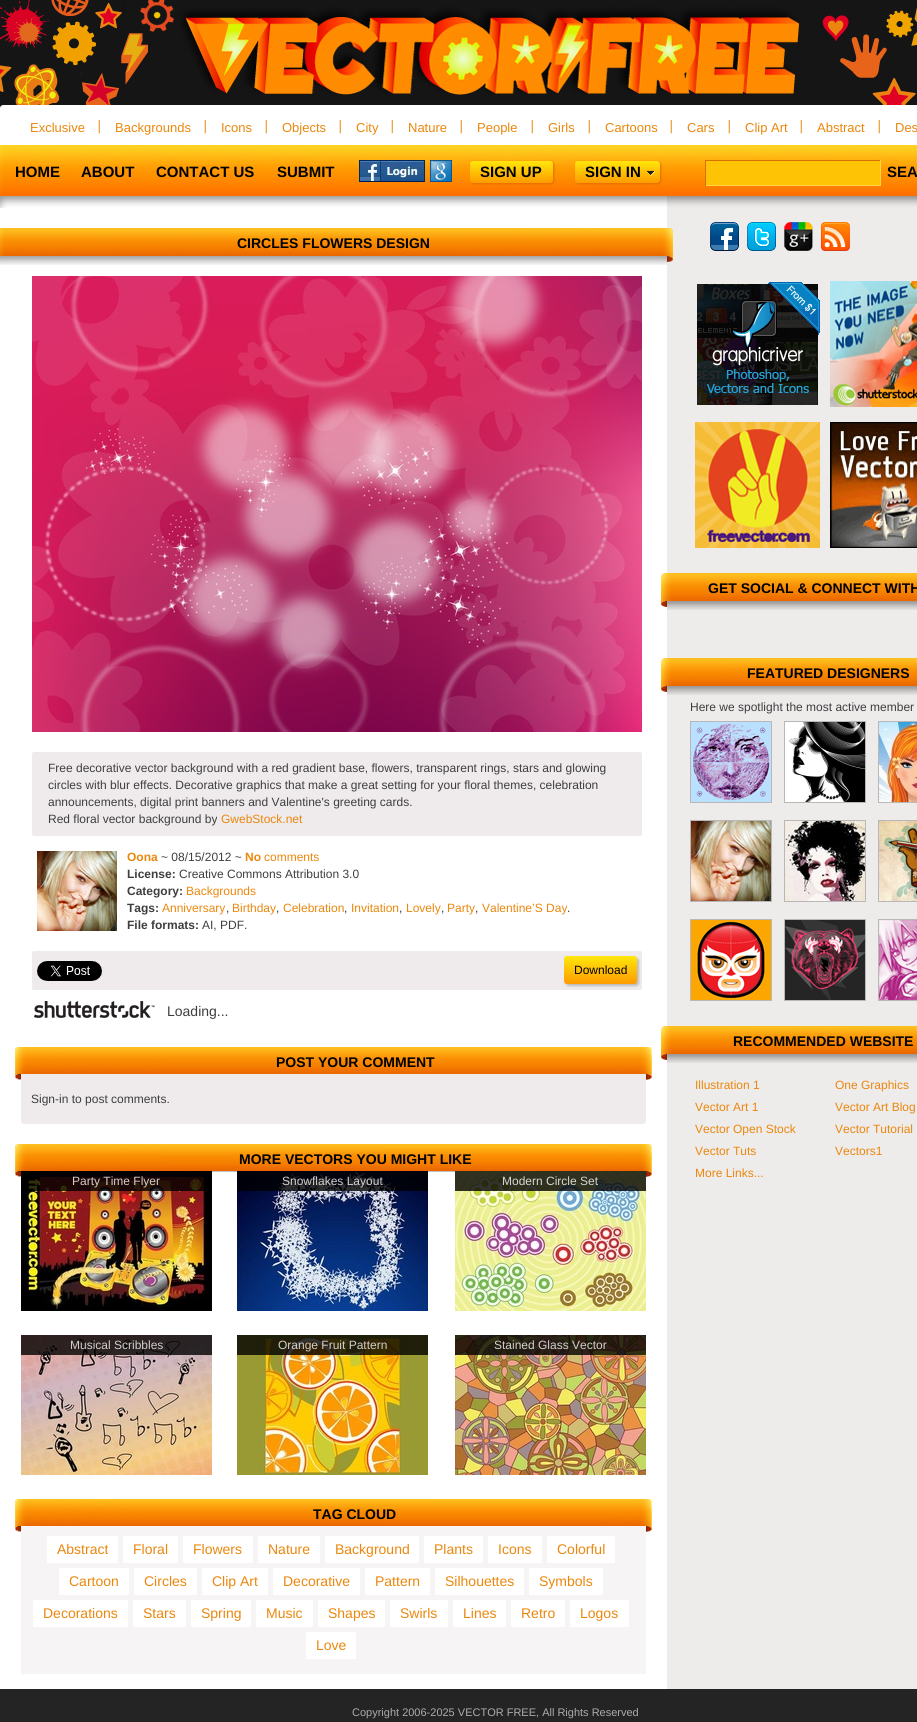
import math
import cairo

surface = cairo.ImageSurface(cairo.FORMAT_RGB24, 917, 1722)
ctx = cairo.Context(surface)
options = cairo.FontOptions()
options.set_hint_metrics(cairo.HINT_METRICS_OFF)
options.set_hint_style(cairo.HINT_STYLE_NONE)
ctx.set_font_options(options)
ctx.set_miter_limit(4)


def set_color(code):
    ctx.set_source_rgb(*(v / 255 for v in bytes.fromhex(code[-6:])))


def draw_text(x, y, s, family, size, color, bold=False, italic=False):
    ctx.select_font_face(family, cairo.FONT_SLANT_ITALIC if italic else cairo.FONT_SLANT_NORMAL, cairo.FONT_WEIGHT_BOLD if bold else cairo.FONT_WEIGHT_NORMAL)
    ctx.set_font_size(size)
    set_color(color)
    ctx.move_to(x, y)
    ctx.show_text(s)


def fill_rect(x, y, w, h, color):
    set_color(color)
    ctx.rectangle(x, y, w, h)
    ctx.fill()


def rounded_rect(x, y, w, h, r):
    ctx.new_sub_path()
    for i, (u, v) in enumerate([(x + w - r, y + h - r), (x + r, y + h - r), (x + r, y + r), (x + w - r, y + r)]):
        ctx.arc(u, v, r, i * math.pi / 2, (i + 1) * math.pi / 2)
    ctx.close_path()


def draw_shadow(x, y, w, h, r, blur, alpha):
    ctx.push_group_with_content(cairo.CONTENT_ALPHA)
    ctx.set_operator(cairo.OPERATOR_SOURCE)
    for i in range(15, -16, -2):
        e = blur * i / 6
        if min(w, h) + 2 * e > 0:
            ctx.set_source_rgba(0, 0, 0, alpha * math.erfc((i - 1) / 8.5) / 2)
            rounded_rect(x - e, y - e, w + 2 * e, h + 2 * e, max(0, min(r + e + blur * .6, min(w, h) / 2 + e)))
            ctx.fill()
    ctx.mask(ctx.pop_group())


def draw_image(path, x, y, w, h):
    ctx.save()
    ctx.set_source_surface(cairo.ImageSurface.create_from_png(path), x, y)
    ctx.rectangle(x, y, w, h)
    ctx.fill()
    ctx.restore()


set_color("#ffffff")
ctx.paint()
draw_image("assets/img1.png", 0, 105, 3, 3)
draw_image("assets/img2.png", 0, 0, 917, 105)
set_color("#ffffff")
ctx.new_path()
ctx.move_to(3, 105)
ctx.line_to(917, 105)
ctx.curve_to(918.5, 105, 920, 106.5, 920, 108)
ctx.line_to(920, 208)
ctx.line_to(0, 208)
ctx.line_to(0, 108)
ctx.curve_to(0, 106.5, 1.5, 105, 3, 105)
ctx.close_path()
ctx.fill()
draw_text(30, 132, "Exclusive", "Liberation Sans", 13, "#eb870d")
draw_image("assets/img3.png", 98, 120, 2, 14)
draw_text(115, 132, "Backgrounds", "Liberation Sans", 13, "#eb870d")
draw_image("assets/img3.png", 204, 120, 2, 14)
draw_text(221, 132, "Icons", "Liberation Sans", 13, "#eb870d")
draw_image("assets/img3.png", 265, 120, 2, 14)
draw_text(282, 132, "Objects", "Liberation Sans", 13, "#eb870d")
draw_image("assets/img3.png", 339, 120, 2, 14)
draw_text(356, 132, "City", "Liberation Sans", 13, "#eb870d")
draw_image("assets/img3.png", 391, 120, 2, 14)
draw_text(408, 132, "Nature", "Liberation Sans", 13, "#eb870d")
draw_image("assets/img3.png", 460, 120, 2, 14)
draw_text(477, 132, "People", "Liberation Sans", 13, "#eb870d")
draw_image("assets/img3.png", 531, 120, 2, 14)
draw_text(548, 132, "Girls", "Liberation Sans", 13, "#eb870d")
draw_image("assets/img3.png", 588, 120, 2, 14)
draw_text(605, 132, "Cartoons", "Liberation Sans", 13, "#eb870d")
draw_image("assets/img3.png", 670, 120, 2, 14)
draw_text(687, 132, "Cars", "Liberation Sans", 13, "#eb870d")
draw_image("assets/img3.png", 728, 120, 2, 14)
draw_text(745, 132, "Clip Art", "Liberation Sans", 13, "#eb870d")
draw_image("assets/img3.png", 800, 120, 2, 14)
draw_text(817, 132, "Abstract", "Liberation Sans", 13, "#eb870d")
draw_image("assets/img3.png", 878, 120, 2, 14)
draw_text(895, 132, "Des", "Liberation Sans", 13, "#eb870d")
draw_image("assets/img4.png", 0, 145, 917, 63)
draw_text(15, 177, "HOME", "Liberation Sans", 15, "#000000", bold=True)
draw_text(81, 177, "ABOUT", "Liberation Sans", 15, "#000000", bold=True)
draw_text(156, 177, "CONTACT US", "Liberation Sans", 15, "#000000", bold=True)
draw_text(277, 177, "SUBMIT", "Liberation Sans", 15, "#000000", bold=True)
draw_image("assets/img5.png", 359, 160, 66, 22)
draw_image("assets/img6.png", 430, 160, 22, 22)
set_color("#e66c00")
draw_shadow(471, 162, 83, 22, 3, 1, 1)
gradient = cairo.LinearGradient(512, 161, 512, 183)
gradient.add_color_stop_rgba(0, 1, 0.906, 0.043, 1)
gradient.add_color_stop_rgba(1, 0.996, 0.608, 0, 1)
ctx.set_source(gradient)
rounded_rect(470, 161, 83, 22, 3)
ctx.fill()
draw_text(480, 177, "SIGN UP", "Liberation Sans", 15, "#000000", bold=True)
set_color("#e66c00")
draw_shadow(576, 162, 85, 22, 3, 1, 1)
gradient = cairo.LinearGradient(618, 161, 618, 183)
gradient.add_color_stop_rgba(0, 1, 0.906, 0.043, 1)
gradient.add_color_stop_rgba(1, 0.996, 0.608, 0, 1)
ctx.set_source(gradient)
rounded_rect(575, 161, 85, 22, 3)
ctx.fill()
draw_text(585, 177, "SIGN IN", "Liberation Sans", 15, "#000000", bold=True)
draw_image("assets/img7.png", 646, 170, 9, 7)
fill_rect(706, 161, 174, 24, "#fec305")
fill_rect(705, 160, 176, 1, "#d77103")
fill_rect(880, 160, 1, 26, "#ffd447")
fill_rect(705, 185, 176, 1, "#ffd447")
fill_rect(705, 160, 1, 26, "#d77103")
draw_text(887, 177, "SEA", "Liberation Sans", 15, "#000000", bold=True)
fill_rect(667, 208, 250, 1481, "#eeebeb")
draw_image("assets/img8.png", 0, 228, 673, 37)
draw_text(237, 248, "CIRCLES FLOWERS DESIGN", "Liberation Sans", 14, "#000000", bold=True)
draw_image("assets/img9.png", 32, 276, 610, 456)
set_color("#efebec")
rounded_rect(32, 752, 610, 84, 2)
ctx.fill()
draw_text(48, 772, "Free decorative vector background with a red gradient base, flowers, transparent rings, stars and glowing", "Liberation Sans", 12, "#3e3e3e")
draw_text(48, 789, "circles with blur effects. Decorative graphics that make a great setting for your floral themes, celebration", "Liberation Sans", 12, "#3e3e3e")
draw_text(48, 806, "announcements, digital print banners and Valentine's greeting cards.", "Liberation Sans", 12, "#3e3e3e")
draw_text(48, 823, "Red floral vector background by", "Liberation Sans", 12, "#3e3e3e")
draw_text(221, 823, "GwebStock.net", "Liberation Sans", 12, "#eb870d")
draw_image("assets/img10.png", 37, 851, 80, 80)
draw_text(127, 861, "Oona", "Liberation Sans", 12, "#eb870d", bold=True)
draw_text(161, 861, "~ 08/15/2012 ~", "Liberation Sans", 12, "#3e3e3e")
draw_text(245, 861, "No", "Liberation Sans", 12, "#eb870d", bold=True)
draw_text(264, 861, "comments", "Liberation Sans", 12, "#eb870d")
draw_text(127, 878, "License:", "Liberation Sans", 12, "#3e3e3e", bold=True)
draw_text(179, 878, "Creative Commons Attribution 3.0", "Liberation Sans", 12, "#3e3e3e")
draw_text(127, 895, "Category:", "Liberation Sans", 12, "#3e3e3e", bold=True)
draw_text(186, 895, "Backgrounds", "Liberation Sans", 12, "#eb870d")
draw_text(127, 912, "Tags:", "Liberation Sans", 12, "#3e3e3e", bold=True)
draw_text(162, 912, "Anniversary", "Liberation Sans", 12, "#eb870d")
draw_text(226, 912, ",", "Liberation Sans", 12, "#3e3e3e")
draw_text(232, 912, "Birthday", "Liberation Sans", 12, "#eb870d")
draw_text(276, 912, ",", "Liberation Sans", 12, "#3e3e3e")
draw_text(283, 912, "Celebration", "Liberation Sans", 12, "#eb870d")
draw_text(344, 912, ",", "Liberation Sans", 12, "#3e3e3e")
draw_text(351, 912, "Invitation", "Liberation Sans", 12, "#eb870d")
draw_text(399, 912, ",", "Liberation Sans", 12, "#3e3e3e")
draw_text(406, 912, "Lovely", "Liberation Sans", 12, "#eb870d")
draw_text(441, 912, ",", "Liberation Sans", 12, "#3e3e3e")
draw_text(447, 912, "Party", "Liberation Sans", 12, "#eb870d")
draw_text(475, 912, ",", "Liberation Sans", 12, "#3e3e3e")
draw_text(482, 912, "Valentine’S Day", "Liberation Sans", 12, "#eb870d")
draw_text(567, 912, ".", "Liberation Sans", 12, "#3e3e3e")
draw_text(127, 929, "File formats:", "Liberation Sans", 12, "#3e3e3e", bold=True)
draw_text(202, 929, "AI, PDF.", "Liberation Sans", 12, "#3e3e3e")
set_color("#efebec")
rounded_rect(32, 951, 610, 39, 2)
ctx.fill()
draw_image("assets/img11.png", 37, 961, 65, 20)
set_color("#bebcbd")
draw_shadow(566, 958, 73, 28, 3, 1, 1)
gradient = cairo.LinearGradient(601, 956, 601, 984)
gradient.add_color_stop_rgba(0, 1, 0.906, 0.043, 1)
gradient.add_color_stop_rgba(1, 0.996, 0.608, 0, 1)
ctx.set_source(gradient)
rounded_rect(564, 956, 73, 28, 3)
ctx.fill()
draw_text(574, 974, "Download", "Liberation Sans", 12, "#000000")
draw_image("assets/img12.png", 34, 1001, 121, 17)
draw_text(167, 1016, "Loading...", "Liberation Sans", 14, "#3e3e3e")
draw_image("assets/img13.png", 15, 1047, 637, 33)
draw_text(276, 1067, "POST YOUR COMMENT", "Liberation Sans", 14, "#000000", bold=True)
set_color("#efebec")
rounded_rect(21, 1074, 625, 50, 3)
ctx.fill()
draw_text(31, 1103, "Sign-in to post comments.", "Liberation Sans", 12, "#3e3e3e")
draw_image("assets/img13.png", 15, 1144, 637, 33)
draw_text(239, 1164, "MORE VECTORS YOU MIGHT LIKE", "Liberation Sans", 14, "#000000", bold=True)
draw_image("assets/img14.png", 21, 1171, 191, 140)
ctx.set_source_rgba(0, 0, 0, 0.8)
ctx.rectangle(21, 1171, 191, 20)
ctx.fill()
draw_text(72, 1185, "Party Time Flyer", "Liberation Sans", 12, "#d2cecd")
draw_image("assets/img15.png", 237, 1171, 191, 140)
ctx.set_source_rgba(0, 0, 0, 0.8)
ctx.rectangle(237, 1171, 191, 20)
ctx.fill()
draw_text(282, 1185, "Snowflakes Layout", "Liberation Sans", 12, "#d2cecd")
draw_image("assets/img16.png", 455, 1171, 191, 140)
ctx.set_source_rgba(0, 0, 0, 0.8)
ctx.rectangle(455, 1171, 191, 20)
ctx.fill()
draw_text(502, 1185, "Modern Circle Set", "Liberation Sans", 12, "#d5d6d2")
draw_image("assets/img17.png", 21, 1335, 191, 140)
ctx.set_source_rgba(0, 0, 0, 0.8)
ctx.rectangle(21, 1335, 191, 20)
ctx.fill()
draw_text(70, 1349, "Musical Scribbles", "Liberation Sans", 12, "#d2cecd")
draw_image("assets/img18.png", 237, 1335, 191, 140)
ctx.set_source_rgba(0, 0, 0, 0.8)
ctx.rectangle(237, 1335, 191, 20)
ctx.fill()
draw_text(278, 1349, "Orange Fruit Pattern", "Liberation Sans", 12, "#d2cecd")
draw_image("assets/img19.png", 455, 1335, 191, 140)
ctx.set_source_rgba(0, 0, 0, 0.8)
ctx.rectangle(455, 1335, 191, 20)
ctx.fill()
draw_text(494, 1349, "Stained Glass Vector", "Liberation Sans", 12, "#d2cecd")
draw_image("assets/img13.png", 15, 1499, 637, 33)
draw_text(313, 1519, "TAG CLOUD", "Liberation Sans", 14, "#000000", bold=True)
fill_rect(21, 1526, 625, 148, "#f6f4f4")
fill_rect(47, 1536, 71, 27, "#ffffff")
draw_text(57, 1554, "Abstract", "Liberation Sans", 14, "#eb870d")
fill_rect(123, 1536, 55, 27, "#ffffff")
draw_text(133, 1554, "Floral", "Liberation Sans", 14, "#eb870d")
fill_rect(183, 1536, 70, 27, "#ffffff")
draw_text(193, 1554, "Flowers", "Liberation Sans", 14, "#eb870d")
fill_rect(258, 1536, 62, 27, "#ffffff")
draw_text(268, 1554, "Nature", "Liberation Sans", 14, "#eb870d")
fill_rect(325, 1536, 94, 27, "#ffffff")
draw_text(335, 1554, "Background", "Liberation Sans", 14, "#eb870d")
fill_rect(424, 1536, 59, 27, "#ffffff")
draw_text(434, 1554, "Plants", "Liberation Sans", 14, "#eb870d")
fill_rect(488, 1536, 54, 27, "#ffffff")
draw_text(498, 1554, "Icons", "Liberation Sans", 14, "#eb870d")
fill_rect(547, 1536, 68, 27, "#ffffff")
draw_text(557, 1554, "Colorful", "Liberation Sans", 14, "#eb870d")
fill_rect(59, 1568, 70, 27, "#ffffff")
draw_text(69, 1586, "Cartoon", "Liberation Sans", 14, "#eb870d")
fill_rect(134, 1568, 63, 27, "#ffffff")
draw_text(144, 1586, "Circles", "Liberation Sans", 14, "#eb870d")
fill_rect(202, 1568, 66, 27, "#ffffff")
draw_text(212, 1586, "Clip Art", "Liberation Sans", 14, "#eb870d")
fill_rect(273, 1568, 87, 27, "#ffffff")
draw_text(283, 1586, "Decorative", "Liberation Sans", 14, "#eb870d")
fill_rect(365, 1568, 65, 27, "#ffffff")
draw_text(375, 1586, "Pattern", "Liberation Sans", 14, "#eb870d")
fill_rect(435, 1568, 89, 27, "#ffffff")
draw_text(445, 1586, "Silhouettes", "Liberation Sans", 14, "#eb870d")
fill_rect(529, 1568, 74, 27, "#ffffff")
draw_text(539, 1586, "Symbols", "Liberation Sans", 14, "#eb870d")
fill_rect(33, 1600, 95, 27, "#ffffff")
draw_text(43, 1618, "Decorations", "Liberation Sans", 14, "#eb870d")
fill_rect(133, 1600, 53, 27, "#ffffff")
draw_text(143, 1618, "Stars", "Liberation Sans", 14, "#eb870d")
fill_rect(191, 1600, 60, 27, "#ffffff")
draw_text(201, 1618, "Spring", "Liberation Sans", 14, "#eb870d")
fill_rect(256, 1600, 57, 27, "#ffffff")
draw_text(266, 1618, "Music", "Liberation Sans", 14, "#eb870d")
fill_rect(318, 1600, 67, 27, "#ffffff")
draw_text(328, 1618, "Shapes", "Liberation Sans", 14, "#eb870d")
fill_rect(390, 1600, 58, 27, "#ffffff")
draw_text(400, 1618, "Swirls", "Liberation Sans", 14, "#eb870d")
fill_rect(453, 1600, 53, 27, "#ffffff")
draw_text(463, 1618, "Lines", "Liberation Sans", 14, "#eb870d")
fill_rect(511, 1600, 54, 27, "#ffffff")
draw_text(521, 1618, "Retro", "Liberation Sans", 14, "#eb870d")
fill_rect(570, 1600, 59, 27, "#ffffff")
draw_text(580, 1618, "Logos", "Liberation Sans", 14, "#eb870d")
fill_rect(306, 1632, 50, 27, "#ffffff")
draw_text(316, 1650, "Love", "Liberation Sans", 14, "#eb870d")
draw_image("assets/img20.png", 710, 222, 29, 29)
draw_image("assets/img21.png", 747, 222, 29, 29)
draw_image("assets/img22.png", 784, 222, 29, 29)
draw_image("assets/img23.png", 821, 222, 29, 29)
draw_image("assets/img24.png", 697, 282, 123, 123)
draw_image("assets/img25.png", 830, 281, 87, 126)
draw_image("assets/img26.png", 695, 422, 125, 126)
draw_image("assets/img27.png", 830, 422, 87, 126)
draw_image("assets/img28.png", 661, 573, 256, 37)
draw_text(708, 593, "GET SOCIAL & CONNECT WITH", "Liberation Sans", 14, "#000000", bold=True)
draw_image("assets/img28.png", 661, 658, 256, 37)
draw_text(747, 678, "FEATURED DESIGNERS", "Liberation Sans", 14, "#000000", bold=True)
draw_text(690, 711, "Here we spotlight the most active member", "Liberation Sans", 12, "#3e3e3e")
ctx.rectangle(690.5, 721.5, 81, 81)
set_color("#b9b7b7")
ctx.set_line_width(1)
ctx.stroke()
ctx.rectangle(784.5, 721.5, 81, 81)
ctx.stroke()
ctx.rectangle(878.5, 721.5, 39, 81)
ctx.stroke()
draw_image("assets/img29.png", 691, 722, 80, 80)
draw_image("assets/img30.png", 785, 722, 80, 80)
draw_image("assets/img31.png", 879, 722, 38, 80)
ctx.rectangle(690.5, 820.5, 81, 81)
ctx.stroke()
ctx.rectangle(784.5, 820.5, 81, 81)
ctx.stroke()
ctx.rectangle(878.5, 820.5, 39, 81)
ctx.stroke()
draw_image("assets/img10.png", 691, 821, 80, 80)
draw_image("assets/img32.png", 785, 821, 80, 80)
draw_image("assets/img33.png", 879, 821, 38, 80)
ctx.rectangle(690.5, 919.5, 81, 81)
ctx.stroke()
ctx.rectangle(784.5, 919.5, 81, 81)
ctx.stroke()
ctx.rectangle(878.5, 919.5, 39, 81)
ctx.stroke()
draw_image("assets/img34.png", 691, 920, 80, 80)
draw_image("assets/img35.png", 785, 920, 80, 80)
draw_image("assets/img36.png", 879, 920, 38, 80)
draw_image("assets/img28.png", 661, 1026, 256, 37)
draw_text(733, 1046, "RECOMMENDED WEBSITE", "Liberation Sans", 14, "#000000", bold=True)
draw_text(695, 1089, "Illustration 1", "Liberation Sans", 12, "#eb870d")
draw_text(835, 1089, "One Graphics", "Liberation Sans", 12, "#eb870d")
draw_text(695, 1111, "Vector Art 1", "Liberation Sans", 12, "#eb870d")
draw_text(835, 1111, "Vector Art Blog", "Liberation Sans", 12, "#eb870d")
draw_text(695, 1133, "Vector Open Stock", "Liberation Sans", 12, "#eb870d")
draw_text(835, 1133, "Vector Tutorial", "Liberation Sans", 12, "#eb870d")
draw_text(695, 1155, "Vector Tuts", "Liberation Sans", 12, "#eb870d")
draw_text(835, 1155, "Vectors1", "Liberation Sans", 12, "#eb870d")
draw_text(695, 1177, "More Links...", "Liberation Sans", 12, "#eb870d")
fill_rect(0, 1689, 917, 33, "#242424")
draw_text(352, 1716, "Copyright 2006-2025 VECTOR FREE, All Rights Reserved", "Liberation Sans", 11, "#aeabab")
surface.write_to_png("output.png")
